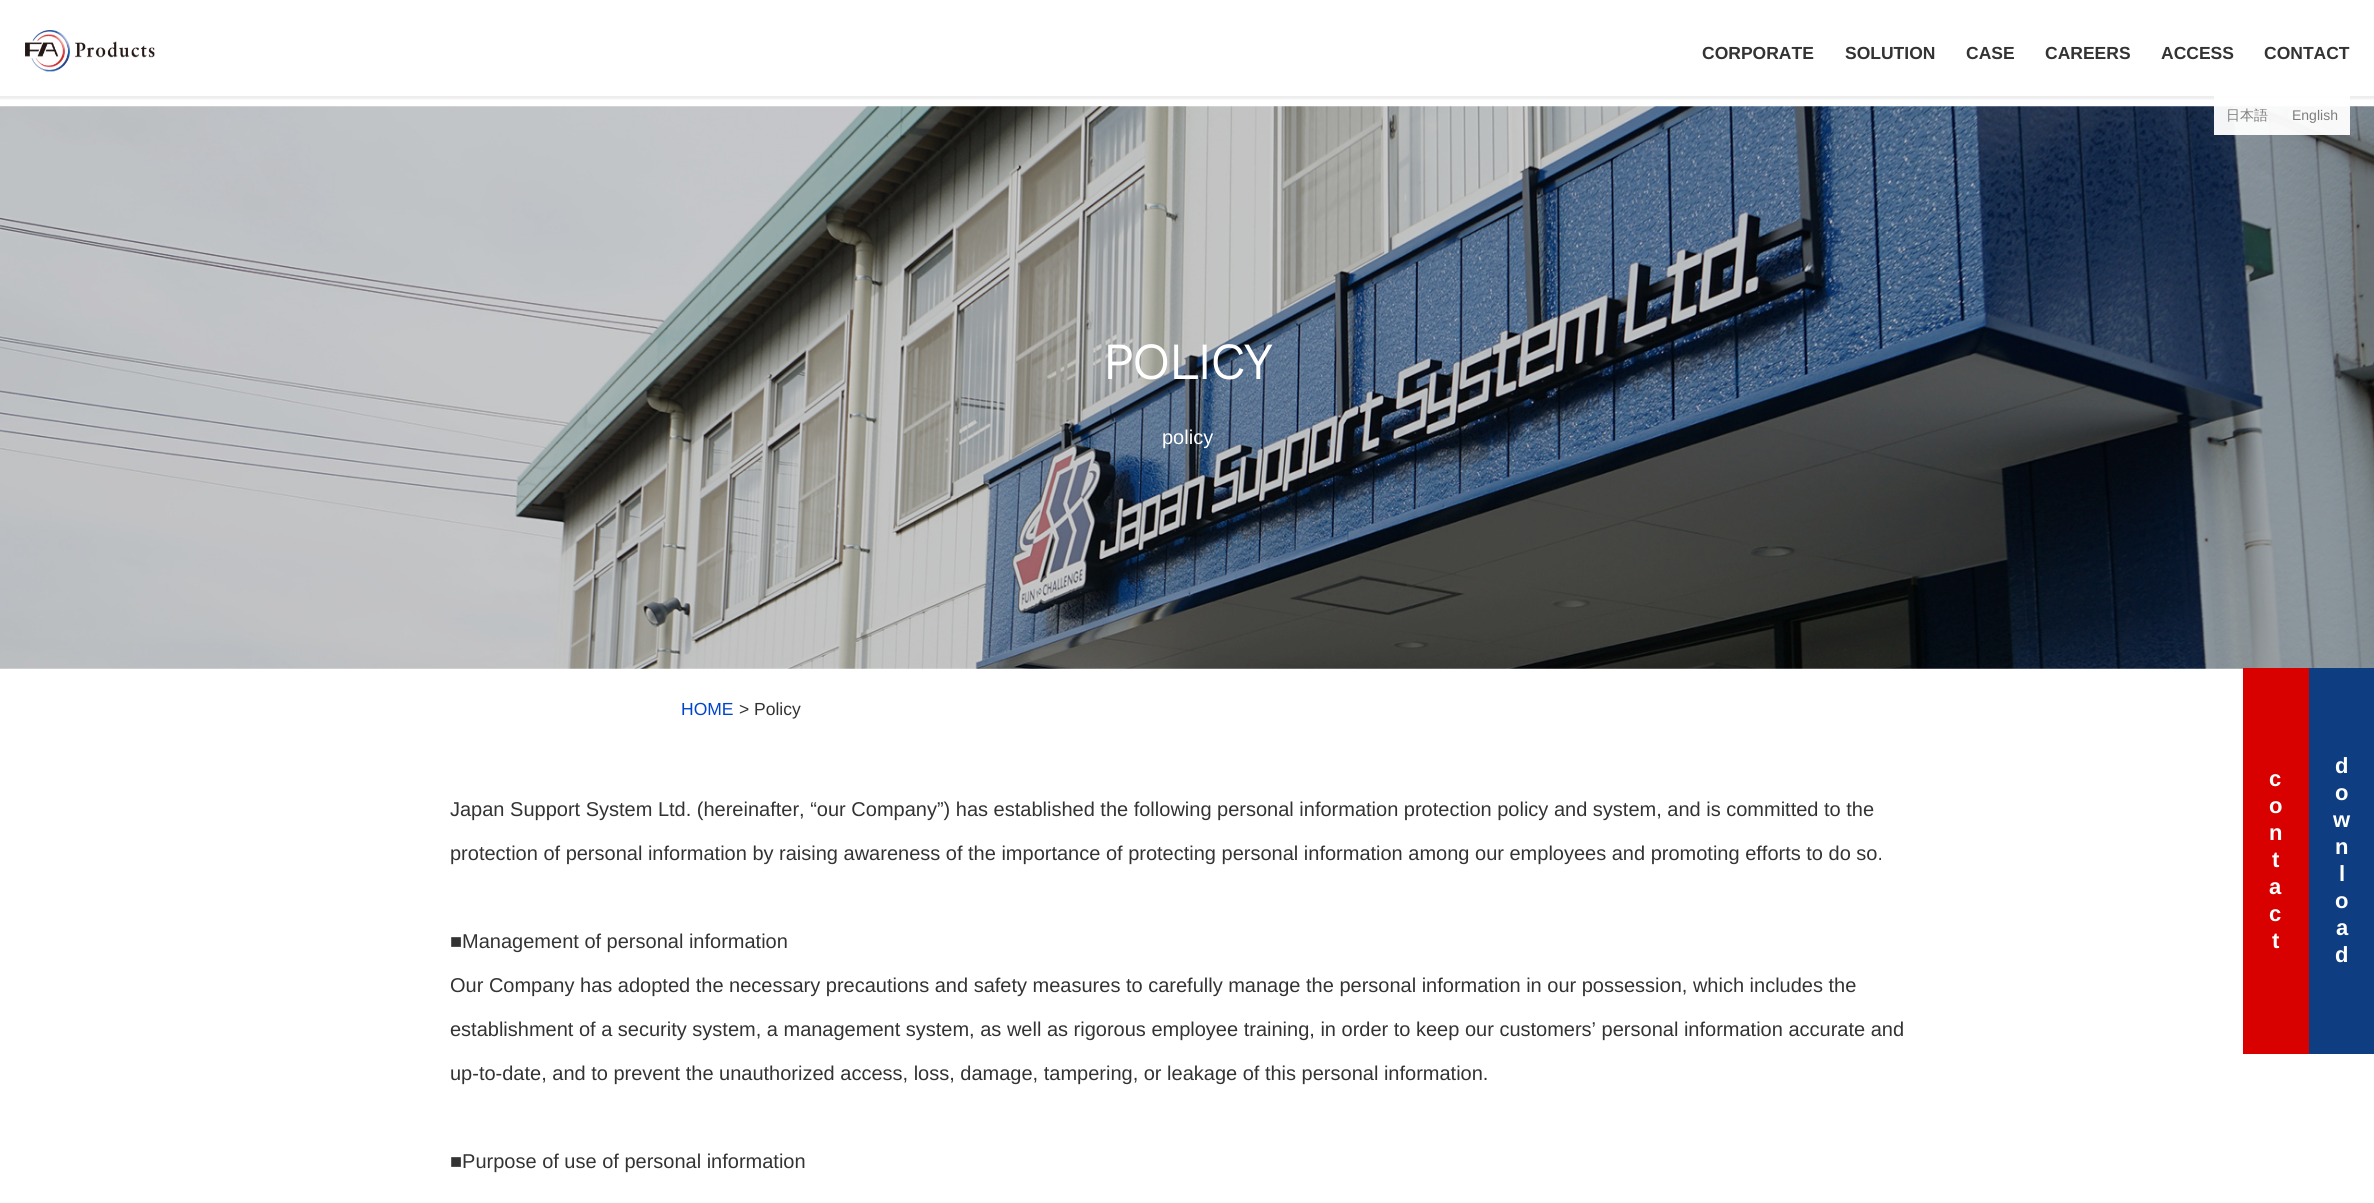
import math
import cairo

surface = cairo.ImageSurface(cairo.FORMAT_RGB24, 2374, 1203)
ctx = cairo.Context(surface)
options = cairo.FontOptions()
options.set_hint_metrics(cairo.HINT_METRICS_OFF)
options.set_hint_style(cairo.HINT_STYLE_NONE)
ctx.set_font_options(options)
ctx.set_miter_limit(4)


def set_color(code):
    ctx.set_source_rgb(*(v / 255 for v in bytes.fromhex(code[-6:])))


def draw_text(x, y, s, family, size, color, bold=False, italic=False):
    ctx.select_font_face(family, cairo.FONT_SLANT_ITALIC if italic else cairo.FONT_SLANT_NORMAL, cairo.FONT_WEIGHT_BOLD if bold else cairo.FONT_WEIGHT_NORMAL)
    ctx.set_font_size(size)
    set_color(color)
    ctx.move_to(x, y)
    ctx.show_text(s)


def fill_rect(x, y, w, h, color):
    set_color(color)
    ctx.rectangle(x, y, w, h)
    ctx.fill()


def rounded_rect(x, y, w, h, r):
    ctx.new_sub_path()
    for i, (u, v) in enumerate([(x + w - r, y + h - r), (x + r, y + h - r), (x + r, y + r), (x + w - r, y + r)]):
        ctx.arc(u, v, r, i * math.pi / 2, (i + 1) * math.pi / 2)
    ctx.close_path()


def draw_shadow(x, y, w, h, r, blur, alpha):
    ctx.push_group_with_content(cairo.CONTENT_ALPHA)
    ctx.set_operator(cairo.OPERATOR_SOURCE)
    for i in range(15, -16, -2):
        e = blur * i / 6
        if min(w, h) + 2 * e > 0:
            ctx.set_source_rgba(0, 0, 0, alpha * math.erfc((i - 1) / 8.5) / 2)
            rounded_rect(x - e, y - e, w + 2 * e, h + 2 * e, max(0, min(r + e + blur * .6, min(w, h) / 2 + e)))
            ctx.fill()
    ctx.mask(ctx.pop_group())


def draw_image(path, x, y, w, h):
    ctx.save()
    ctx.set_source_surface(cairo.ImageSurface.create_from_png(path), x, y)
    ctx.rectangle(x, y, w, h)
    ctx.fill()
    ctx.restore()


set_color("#ffffff")
ctx.paint()
ctx.save()
ctx.rectangle(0, 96, 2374, 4)
ctx.clip()
set_color("#464646")
draw_shadow(-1, 0, 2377, 99, 0, 1, 0.1)
ctx.restore()
draw_image("assets/img1.png", 25, 30, 130, 42)
draw_text(1702, 59, "CORPORATE", "Liberation Sans", 17.5, "#333333", bold=True)
draw_text(1845, 59, "SOLUTION", "Liberation Sans", 17.5, "#333333", bold=True)
draw_text(1966, 59, "CASE", "Liberation Sans", 17.5, "#333333", bold=True)
draw_text(2045, 59, "CAREERS", "Liberation Sans", 17.5, "#333333", bold=True)
draw_text(2161, 59, "ACCESS", "Liberation Sans", 17.5, "#333333", bold=True)
draw_text(2264, 59, "CONTACT", "Liberation Sans", 17.5, "#333333", bold=True)
draw_image("assets/img2.png", 0, 106, 2374, 563)
ctx.set_source_rgba(1, 1, 1, 0.95)
ctx.rectangle(2214, 96, 66, 39)
ctx.fill()
draw_text(2226, 120, "日本語", "WenQuanYi Zen Hei Medium", 14, "#7d7d7d")
ctx.set_source_rgba(1, 1, 1, 0.95)
ctx.rectangle(2280, 96, 70, 39)
ctx.fill()
draw_text(2292, 120, "English", "Liberation Sans", 14, "#7d7d7d")
draw_text(1103, 379, "POLICY", "Work Sans", 50, "#ffffff", bold=True)
draw_text(1162, 444, "policy", "Liberation Sans", 20, "#ffffff")
draw_text(681, 715, "HOME", "Liberation Sans", 17.5, "#0044cc")
draw_text(739, 715, "> Policy", "Liberation Sans", 17.5, "#333333")
draw_text(450, 816, "Japan Support System Ltd. (hereinafter, “our Company”) has established the following personal information protection policy and system, and is committed to the", "Liberation Sans", 20, "#333333")
draw_text(450, 860, "protection of personal information by raising awareness of the importance of protecting personal information among our employees and promoting efforts to do so.", "Liberation Sans", 20, "#333333")
draw_text(450, 948, "■Management of personal information", "Liberation Sans", 20, "#333333")
draw_text(450, 992, "Our Company has adopted the necessary precautions and safety measures to carefully manage the personal information in our possession, which includes the", "Liberation Sans", 20, "#333333")
draw_text(450, 1036, "establishment of a security system, a management system, as well as rigorous employee training, in order to keep our customers’ personal information accurate and", "Liberation Sans", 20, "#333333")
draw_text(450, 1080, "up-to-date, and to prevent the unauthorized access, loss, damage, tampering, or leakage of this personal information.", "Liberation Sans", 20, "#333333")
draw_text(450, 1168, "■Purpose of use of personal information", "Liberation Sans", 20, "#333333")
fill_rect(2243, 668, 66, 386, "#d90000")
draw_text(2269, 786, "c", "Liberation Sans", 22, "#ffffff", bold=True)
draw_text(2269, 813, "o", "Liberation Sans", 22, "#ffffff", bold=True)
draw_text(2269, 840, "n", "Liberation Sans", 22, "#ffffff", bold=True)
draw_text(2272, 867, "t", "Liberation Sans", 22, "#ffffff", bold=True)
draw_text(2269, 894, "a", "Liberation Sans", 22, "#ffffff", bold=True)
draw_text(2269, 921, "c", "Liberation Sans", 22, "#ffffff", bold=True)
draw_text(2272, 948, "t", "Liberation Sans", 22, "#ffffff", bold=True)
fill_rect(2309, 668, 65, 386, "#0e3e81")
draw_text(2335, 773, "d", "Liberation Sans", 22, "#ffffff", bold=True)
draw_text(2335, 800, "o", "Liberation Sans", 22, "#ffffff", bold=True)
draw_text(2333, 827, "w", "Liberation Sans", 22, "#ffffff", bold=True)
draw_text(2335, 854, "n", "Liberation Sans", 22, "#ffffff", bold=True)
draw_text(2339, 881, "l", "Liberation Sans", 22, "#ffffff", bold=True)
draw_text(2335, 908, "o", "Liberation Sans", 22, "#ffffff", bold=True)
draw_text(2336, 935, "a", "Liberation Sans", 22, "#ffffff", bold=True)
draw_text(2335, 962, "d", "Liberation Sans", 22, "#ffffff", bold=True)
surface.write_to_png("output.png")
